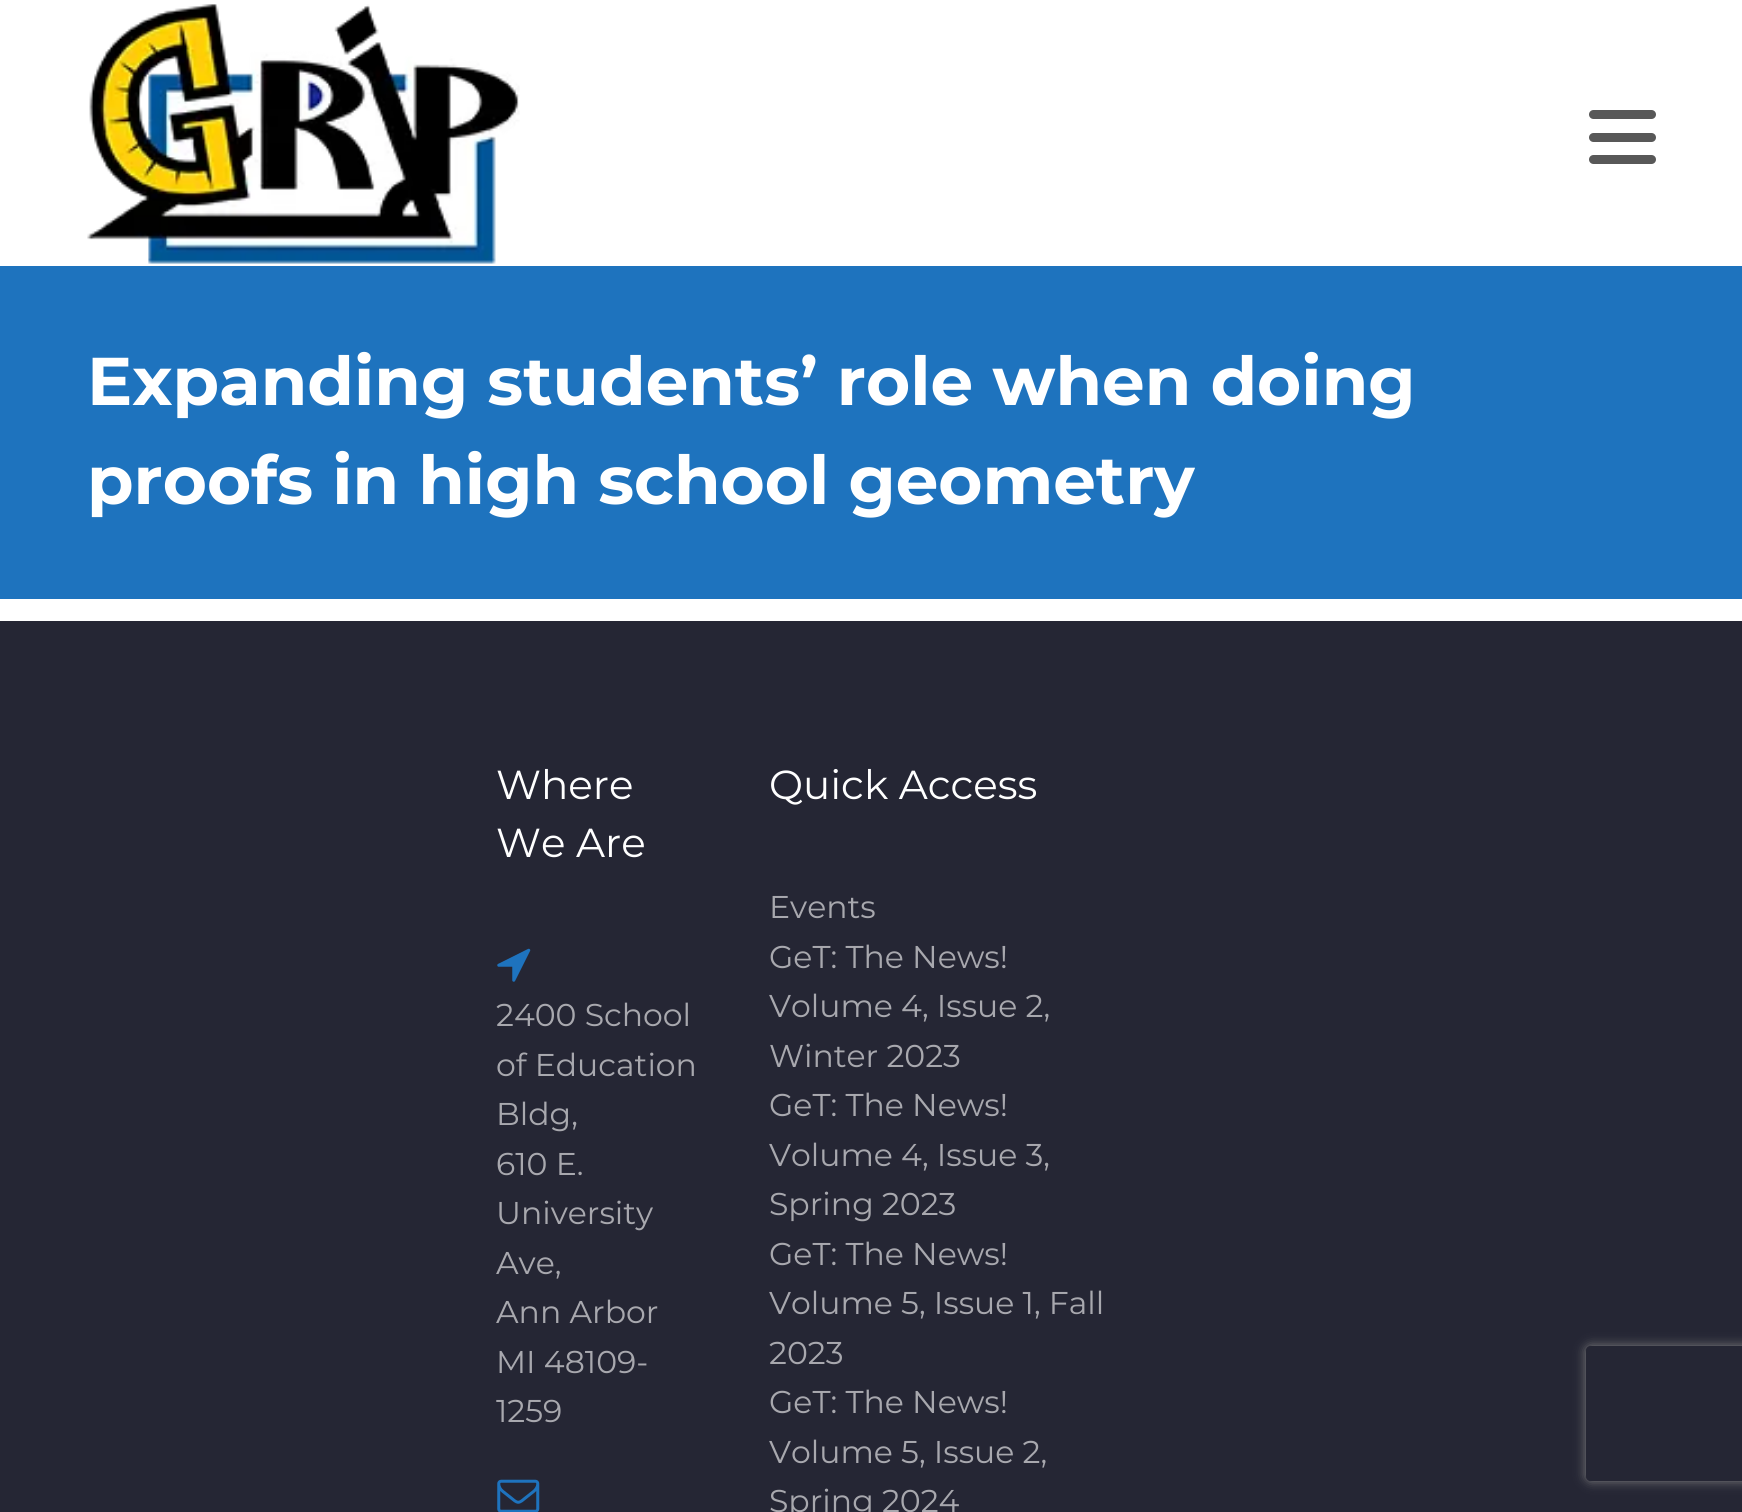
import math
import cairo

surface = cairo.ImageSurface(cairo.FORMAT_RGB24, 1742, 1512)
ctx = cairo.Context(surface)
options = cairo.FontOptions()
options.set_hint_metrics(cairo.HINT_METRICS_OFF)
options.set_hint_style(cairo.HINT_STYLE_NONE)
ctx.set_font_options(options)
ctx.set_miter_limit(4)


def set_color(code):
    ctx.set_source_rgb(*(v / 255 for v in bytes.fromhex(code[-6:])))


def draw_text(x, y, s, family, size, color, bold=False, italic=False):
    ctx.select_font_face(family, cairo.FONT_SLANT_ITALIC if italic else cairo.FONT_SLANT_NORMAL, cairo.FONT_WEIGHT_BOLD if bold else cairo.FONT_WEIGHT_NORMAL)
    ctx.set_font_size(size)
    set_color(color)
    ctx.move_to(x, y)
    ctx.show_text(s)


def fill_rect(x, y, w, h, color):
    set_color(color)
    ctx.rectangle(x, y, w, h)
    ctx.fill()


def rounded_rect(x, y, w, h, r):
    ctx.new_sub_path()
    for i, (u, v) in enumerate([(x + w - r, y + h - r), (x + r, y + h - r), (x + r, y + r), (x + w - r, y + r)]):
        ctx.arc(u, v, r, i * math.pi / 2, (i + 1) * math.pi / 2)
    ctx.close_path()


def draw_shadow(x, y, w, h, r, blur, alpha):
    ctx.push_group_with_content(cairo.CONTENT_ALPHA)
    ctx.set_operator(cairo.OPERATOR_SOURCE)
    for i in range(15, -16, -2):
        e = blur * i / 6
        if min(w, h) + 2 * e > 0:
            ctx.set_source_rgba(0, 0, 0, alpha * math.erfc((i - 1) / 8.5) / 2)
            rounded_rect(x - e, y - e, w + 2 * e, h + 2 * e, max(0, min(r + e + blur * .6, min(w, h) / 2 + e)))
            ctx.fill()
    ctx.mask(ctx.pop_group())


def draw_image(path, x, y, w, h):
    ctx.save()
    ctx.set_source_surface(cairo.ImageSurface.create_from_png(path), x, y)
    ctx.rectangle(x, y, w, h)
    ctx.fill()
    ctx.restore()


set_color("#ffffff")
ctx.paint()
draw_image("assets/img1.png", 87, 4, 433, 260)
set_color("#585858")
rounded_rect(1589, 110, 67, 9, 4.5)
ctx.fill()
rounded_rect(1589, 133, 67, 9, 4.5)
ctx.fill()
rounded_rect(1589, 155, 67, 9, 4.5)
ctx.fill()
fill_rect(0, 266, 1742, 333, "#1e73be")
draw_text(87, 405, "Expanding students’ role when doing", "Montserrat", 67.5, "#ffffff", bold=True)
draw_text(87, 504, "proofs in high school geometry", "Montserrat", 67.5, "#ffffff", bold=True)
fill_rect(0, 621, 1742, 891, "#252634")
draw_text(496, 799, "Where", "Montserrat", 40.5, "#ffffff")
draw_text(496, 857, "We Are", "Montserrat", 40.5, "#ffffff")
draw_image("assets/img2.png", 497, 948, 34, 34)
draw_text(496, 1026, "2400 School", "Montserrat", 31.5, "#a8a8ae")
draw_text(496, 1076, "of Education", "Montserrat", 31.5, "#a8a8ae")
draw_text(496, 1125, "Bldg,", "Montserrat", 31.5, "#a8a8ae")
draw_text(496, 1175, "610 E.", "Montserrat", 31.5, "#a8a8ae")
draw_text(496, 1224, "University", "Montserrat", 31.5, "#a8a8ae")
draw_text(496, 1274, "Ave,", "Montserrat", 31.5, "#a8a8ae")
draw_text(496, 1323, "Ann Arbor", "Montserrat", 31.5, "#a8a8ae")
draw_text(496, 1373, "MI 48109-", "Montserrat", 31.5, "#a8a8ae")
draw_text(496, 1422, "1259", "Montserrat", 31.5, "#a8a8ae")
draw_image("assets/img3.png", 497, 1479, 43, 33)
draw_text(769, 799, "Quick Access", "Montserrat", 40.5, "#ffffff")
draw_text(769, 918, "Events", "Montserrat", 31.5, "#a8a8ae")
draw_text(769, 968, "GeT: The News!", "Montserrat", 31.5, "#a8a8ae")
draw_text(769, 1017, "Volume 4, Issue 2,", "Montserrat", 31.5, "#a8a8ae")
draw_text(769, 1067, "Winter 2023", "Montserrat", 31.5, "#a8a8ae")
draw_text(769, 1116, "GeT: The News!", "Montserrat", 31.5, "#a8a8ae")
draw_text(769, 1166, "Volume 4, Issue 3,", "Montserrat", 31.5, "#a8a8ae")
draw_text(769, 1215, "Spring 2023", "Montserrat", 31.5, "#a8a8ae")
draw_text(769, 1265, "GeT: The News!", "Montserrat", 31.5, "#a8a8ae")
draw_text(769, 1314, "Volume 5, Issue 1, Fall", "Montserrat", 31.5, "#a8a8ae")
draw_text(769, 1364, "2023", "Montserrat", 31.5, "#a8a8ae")
draw_text(769, 1413, "GeT: The News!", "Montserrat", 31.5, "#a8a8ae")
draw_text(769, 1463, "Volume 5, Issue 2,", "Montserrat", 31.5, "#a8a8ae")
draw_text(769, 1512, "Spring 2024", "Montserrat", 31.5, "#a8a8ae")
ctx.save()
ctx.set_fill_rule(cairo.FILL_RULE_EVEN_ODD)
ctx.new_path()
ctx.move_to(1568, 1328)
ctx.line_to(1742, 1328)
ctx.line_to(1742, 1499)
ctx.line_to(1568, 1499)
ctx.close_path()
ctx.move_to(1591, 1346)
ctx.line_to(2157, 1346)
ctx.curve_to(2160, 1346, 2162, 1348, 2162, 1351)
ctx.line_to(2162, 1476)
ctx.curve_to(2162, 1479, 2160, 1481, 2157, 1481)
ctx.line_to(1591, 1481)
ctx.curve_to(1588, 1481, 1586, 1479, 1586, 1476)
ctx.line_to(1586, 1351)
ctx.curve_to(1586, 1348, 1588, 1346, 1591, 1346)
ctx.close_path()
ctx.clip()
set_color("#808080")
draw_shadow(1586, 1346, 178, 135, 5, 5.5, 1)
ctx.restore()
surface.write_to_png("output.png")
